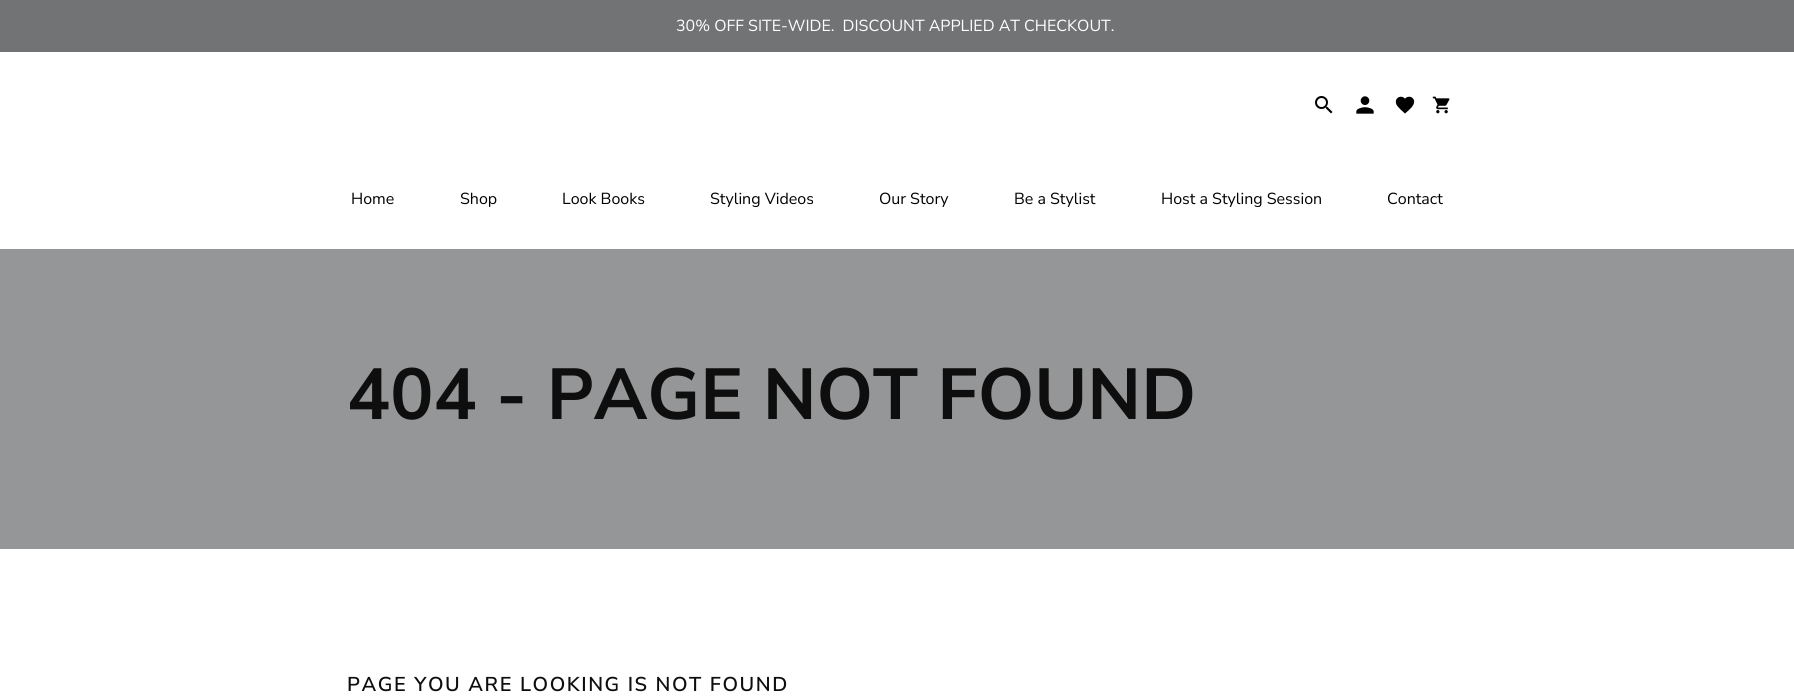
import math
import cairo

surface = cairo.ImageSurface(cairo.FORMAT_RGB24, 1794, 696)
ctx = cairo.Context(surface)
options = cairo.FontOptions()
options.set_hint_metrics(cairo.HINT_METRICS_OFF)
options.set_hint_style(cairo.HINT_STYLE_NONE)
ctx.set_font_options(options)
ctx.set_miter_limit(4)


def set_color(code):
    ctx.set_source_rgb(*(v / 255 for v in bytes.fromhex(code[-6:])))


def draw_text(x, y, s, family, size, color, bold=False, italic=False):
    ctx.select_font_face(family, cairo.FONT_SLANT_ITALIC if italic else cairo.FONT_SLANT_NORMAL, cairo.FONT_WEIGHT_BOLD if bold else cairo.FONT_WEIGHT_NORMAL)
    ctx.set_font_size(size)
    set_color(color)
    ctx.move_to(x, y)
    ctx.show_text(s)


def draw_spaced(x, y, s, letter, word):
    ctx.move_to(x, y)
    for ch in s:
        ctx.show_text(ch)
        ctx.rel_move_to(letter + word * (ch == ' '), 0)


def fill_rect(x, y, w, h, color):
    set_color(color)
    ctx.rectangle(x, y, w, h)
    ctx.fill()


def draw_image(path, x, y, w, h):
    ctx.save()
    ctx.set_source_surface(cairo.ImageSurface.create_from_png(path), x, y)
    ctx.rectangle(x, y, w, h)
    ctx.fill()
    ctx.restore()


set_color("#ffffff")
ctx.paint()
fill_rect(0, 0, 1794, 52, "#727374")
draw_text(676, 31, "30% OFF SITE-WIDE.  DISCOUNT APPLIED AT CHECKOUT.", "Nunito Sans", 16, "#ffffff")
draw_image("assets/img1.png", 1315, 96, 18, 18)
draw_image("assets/img2.png", 1356, 96, 18, 18)
draw_image("assets/img3.png", 1395, 96, 20, 18)
draw_image("assets/img4.png", 1432, 96, 18, 18)
draw_text(351, 204, "Home", "Nunito Sans", 16, "#000000")
draw_text(460, 204, "Shop", "Nunito Sans", 16, "#000000")
draw_text(562, 204, "Look Books", "Nunito Sans", 16, "#000000")
draw_text(710, 204, "Styling Videos", "Nunito Sans", 16, "#000000")
draw_text(879, 204, "Our Story", "Nunito Sans", 16, "#000000")
draw_text(1014, 204, "Be a Stylist", "Nunito Sans", 16, "#000000")
draw_text(1161, 204, "Host a Styling Session", "Nunito Sans", 16, "#000000")
draw_text(1387, 204, "Contact", "Nunito Sans", 16, "#000000")
fill_rect(0, 249, 1794, 300, "#959697")
draw_text(347, 419, "404 - PAGE NOT FOUND", "Nunito Sans", 72, "#0e0e0e", bold=True)
ctx.select_font_face("Nunito Sans SemiBold")
ctx.set_font_size(20)
draw_spaced(347, 691, "PAGE YOU ARE LOOKING IS NOT FOUND", 1.6, 0)
surface.write_to_png("output.png")
